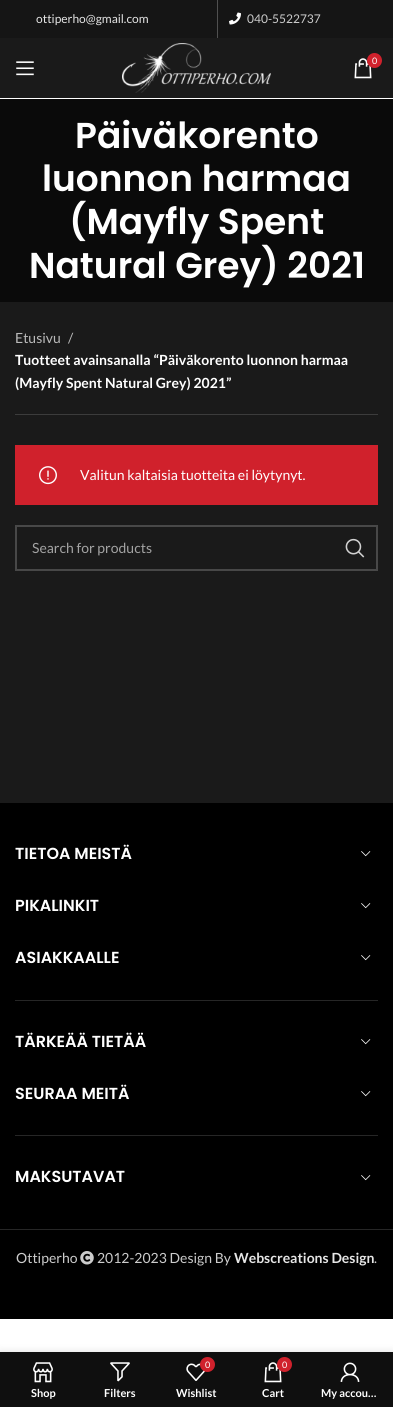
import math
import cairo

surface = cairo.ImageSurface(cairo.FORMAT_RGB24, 393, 1407)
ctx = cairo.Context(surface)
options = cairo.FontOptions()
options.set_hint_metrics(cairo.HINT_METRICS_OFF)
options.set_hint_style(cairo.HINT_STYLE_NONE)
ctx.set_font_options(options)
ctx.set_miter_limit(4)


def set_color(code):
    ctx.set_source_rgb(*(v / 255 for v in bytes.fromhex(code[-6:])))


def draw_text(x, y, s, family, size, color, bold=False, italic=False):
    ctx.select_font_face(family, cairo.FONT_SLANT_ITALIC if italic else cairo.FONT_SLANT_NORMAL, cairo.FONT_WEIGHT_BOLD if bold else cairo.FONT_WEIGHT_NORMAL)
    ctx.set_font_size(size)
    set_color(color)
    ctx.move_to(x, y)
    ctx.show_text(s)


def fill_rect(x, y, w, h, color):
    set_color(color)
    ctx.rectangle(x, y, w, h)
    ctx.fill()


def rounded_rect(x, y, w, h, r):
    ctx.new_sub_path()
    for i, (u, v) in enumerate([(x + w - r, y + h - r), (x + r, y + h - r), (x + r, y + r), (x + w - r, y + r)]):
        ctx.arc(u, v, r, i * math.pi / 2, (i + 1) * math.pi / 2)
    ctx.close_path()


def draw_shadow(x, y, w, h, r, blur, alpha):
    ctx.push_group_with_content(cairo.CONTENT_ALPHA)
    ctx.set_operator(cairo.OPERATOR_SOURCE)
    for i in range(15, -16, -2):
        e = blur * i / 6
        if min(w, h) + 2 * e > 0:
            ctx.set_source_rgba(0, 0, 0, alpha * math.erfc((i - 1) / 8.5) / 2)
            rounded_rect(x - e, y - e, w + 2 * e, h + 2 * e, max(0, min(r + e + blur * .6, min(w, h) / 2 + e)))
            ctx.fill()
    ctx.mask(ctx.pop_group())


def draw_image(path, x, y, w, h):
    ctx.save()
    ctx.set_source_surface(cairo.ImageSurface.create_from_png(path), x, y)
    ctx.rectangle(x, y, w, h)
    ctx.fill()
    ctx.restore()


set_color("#ffffff")
ctx.paint()
fill_rect(0, 38, 393, 765, "#1a1a1a")
fill_rect(0, 0, 393, 38, "#151515")
draw_text(36, 23, "ottiperho@gmail.com", "Lato", 12, "#e6e6e6")
fill_rect(217, 0, 1, 38, "#505050")
draw_image("assets/img1.png", 229, 12, 12, 13)
draw_text(247, 23, "040-5522737", "Lato", 12, "#cccccc")
fill_rect(0, 98, 393, 1, "#ffffff")
draw_image("assets/img2.png", 16, 61, 18, 15)
draw_image("assets/img3.png", 122, 43, 149, 50)
draw_image("assets/img4.png", 354, 58, 18, 21)
set_color("#d0212c")
ctx.arc(374.5, 60.5, 7.5, 0, 2 * math.pi)
ctx.fill()
draw_text(372, 64, "0", "Lato", 9, "#ffffff")
fill_rect(0, 99, 393, 203, "#0a0a0a")
draw_text(75, 148, "Päiväkorento", "Poppins SemiBold", 36, "#ffffff")
draw_text(42, 191, "luonnon harmaa", "Poppins SemiBold", 36, "#ffffff")
draw_text(69, 234, "(Mayfly Spent", "Poppins SemiBold", 36, "#ffffff")
draw_text(29, 278, "Natural Grey) 2021", "Poppins SemiBold", 36, "#ffffff")
fill_rect(15, 414, 363, 1, "#3c3c3c")
draw_text(15, 343, "Etusivu", "Lato", 14, "#bababa")
draw_text(68, 343, "/", "Lato", 14, "#bababa")
draw_text(15, 365, "Tuotteet avainsanalla “Päiväkorento luonnon harmaa", "Lato", 14, "#ffffff", bold=True)
draw_text(15, 388, "(Mayfly Spent Natural Grey) 2021”", "Lato", 14, "#ffffff", bold=True)
fill_rect(15, 445, 363, 60, "#d0212c")
draw_image("assets/img5.png", 39, 466, 18, 19)
draw_text(80, 480, "Valitun kaltaisia tuotteita ei löytynyt.", "Lato", 14, "#ffffff")
ctx.rectangle(16, 526, 361, 44)
set_color("#484848")
ctx.stroke()
draw_text(32, 553, "Search for products", "Lato", 14, "#a3a3a3")
draw_image("assets/img6.png", 345, 538, 20, 20)
fill_rect(0, 803, 393, 516, "#000000")
draw_text(15, 859, "TIETOA MEISTÄ", "Poppins SemiBold", 16, "#ffffff")
draw_image("assets/img7.png", 361, 851, 10, 6)
draw_text(15, 911, "PIKALINKIT", "Poppins SemiBold", 16, "#ffffff")
draw_image("assets/img7.png", 361, 903, 10, 6)
fill_rect(15, 1000, 363, 1, "#262626")
draw_text(15, 963, "ASIAKKAALLE", "Poppins SemiBold", 16, "#ffffff")
draw_image("assets/img7.png", 361, 955, 10, 6)
draw_text(15, 1047, "TÄRKEÄÄ TIETÄÄ", "Poppins SemiBold", 16, "#ffffff")
draw_image("assets/img7.png", 361, 1039, 10, 6)
fill_rect(15, 1135, 363, 1, "#262626")
draw_text(15, 1099, "SEURAA MEITÄ", "Poppins SemiBold", 16, "#ffffff")
draw_image("assets/img7.png", 361, 1091, 10, 6)
draw_text(15, 1182, "MAKSUTAVAT", "Poppins SemiBold", 16, "#ffffff")
draw_image("assets/img7.png", 361, 1175, 10, 6)
fill_rect(0, 1229, 393, 1, "#262626")
draw_text(16, 1263, "Ottiperho", "Lato", 14, "#cccccc")
draw_image("assets/img8.png", 80, 1251, 14, 14)
draw_text(97, 1263, "2012-2023 Design By", "Lato", 14, "#cccccc")
draw_text(234, 1263, "Webscreations Design", "Lato", 14, "#e6e6e6", bold=True)
draw_text(374, 1263, ".", "Lato", 14, "#cccccc")
set_color("#000000")
draw_shadow(0, 1352, 393, 55, 0, 4.5, 0.12)
fill_rect(0, 1352, 393, 55, "#0f0f0f")
draw_image("assets/img9.png", 33, 1362, 20, 21)
draw_text(31, 1397, "Shop", "Lato", 11, "#ffffff", bold=True)
draw_image("assets/img10.png", 110, 1362, 20, 20)
draw_text(104, 1397, "Filters", "Lato", 11, "#ffffff", bold=True)
draw_image("assets/img11.png", 186, 1363, 20, 18)
set_color("#d0212c")
ctx.arc(207.5, 1364.5, 7.5, 0, 2 * math.pi)
ctx.fill()
draw_text(205, 1368, "0", "Lato", 9, "#ffffff")
draw_text(176, 1397, "Wishlist", "Lato", 11, "#ffffff", bold=True)
draw_image("assets/img12.png", 264, 1362, 18, 21)
set_color("#d0212c")
ctx.arc(284.5, 1364.5, 7.5, 0, 2 * math.pi)
ctx.fill()
draw_text(282, 1368, "0", "Lato", 9, "#ffffff")
draw_text(262, 1397, "Cart", "Lato", 11, "#ffffff", bold=True)
draw_image("assets/img13.png", 340, 1362, 20, 20)
draw_text(321, 1397, "My accou…", "Lato", 11, "#ffffff", bold=True)
surface.write_to_png("output.png")
